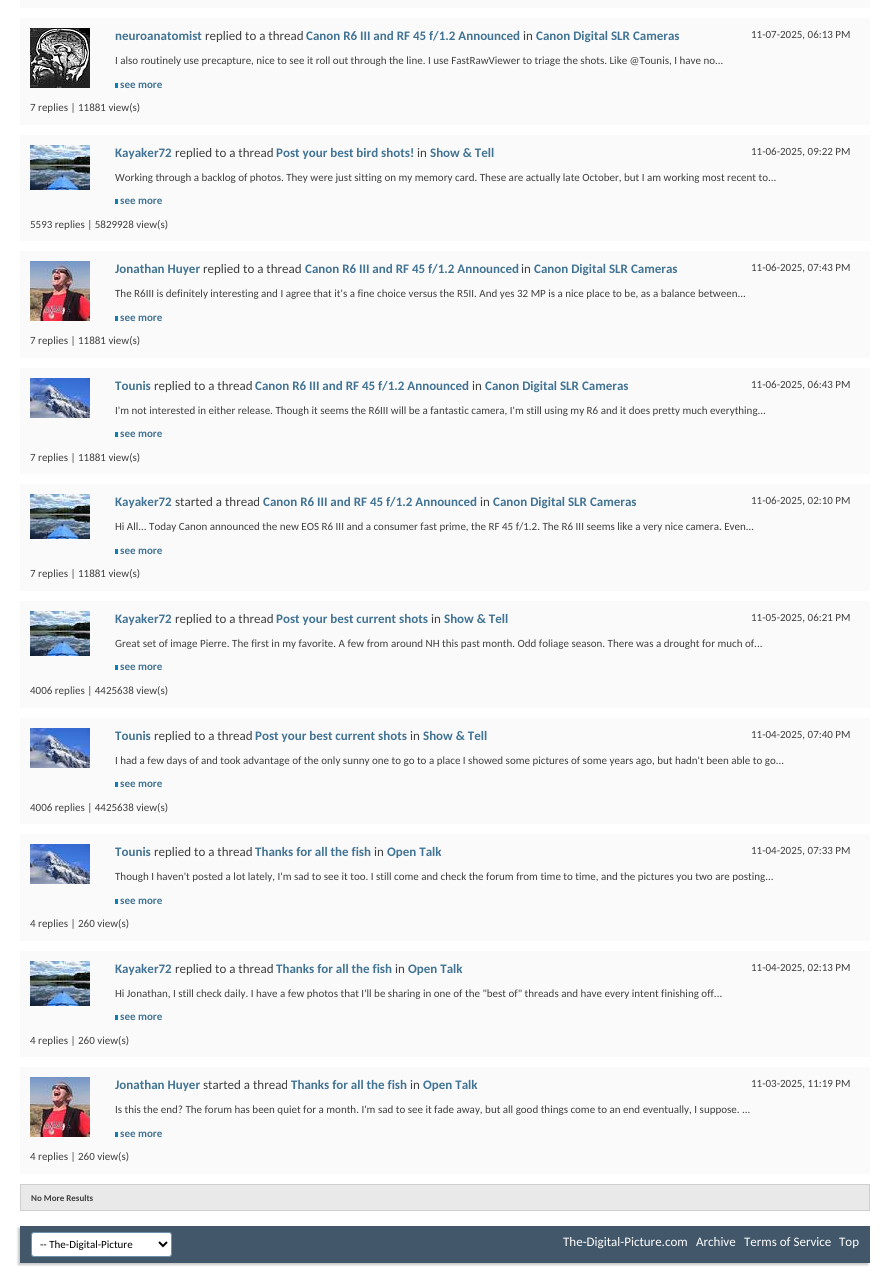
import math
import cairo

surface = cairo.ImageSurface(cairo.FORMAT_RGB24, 890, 1277)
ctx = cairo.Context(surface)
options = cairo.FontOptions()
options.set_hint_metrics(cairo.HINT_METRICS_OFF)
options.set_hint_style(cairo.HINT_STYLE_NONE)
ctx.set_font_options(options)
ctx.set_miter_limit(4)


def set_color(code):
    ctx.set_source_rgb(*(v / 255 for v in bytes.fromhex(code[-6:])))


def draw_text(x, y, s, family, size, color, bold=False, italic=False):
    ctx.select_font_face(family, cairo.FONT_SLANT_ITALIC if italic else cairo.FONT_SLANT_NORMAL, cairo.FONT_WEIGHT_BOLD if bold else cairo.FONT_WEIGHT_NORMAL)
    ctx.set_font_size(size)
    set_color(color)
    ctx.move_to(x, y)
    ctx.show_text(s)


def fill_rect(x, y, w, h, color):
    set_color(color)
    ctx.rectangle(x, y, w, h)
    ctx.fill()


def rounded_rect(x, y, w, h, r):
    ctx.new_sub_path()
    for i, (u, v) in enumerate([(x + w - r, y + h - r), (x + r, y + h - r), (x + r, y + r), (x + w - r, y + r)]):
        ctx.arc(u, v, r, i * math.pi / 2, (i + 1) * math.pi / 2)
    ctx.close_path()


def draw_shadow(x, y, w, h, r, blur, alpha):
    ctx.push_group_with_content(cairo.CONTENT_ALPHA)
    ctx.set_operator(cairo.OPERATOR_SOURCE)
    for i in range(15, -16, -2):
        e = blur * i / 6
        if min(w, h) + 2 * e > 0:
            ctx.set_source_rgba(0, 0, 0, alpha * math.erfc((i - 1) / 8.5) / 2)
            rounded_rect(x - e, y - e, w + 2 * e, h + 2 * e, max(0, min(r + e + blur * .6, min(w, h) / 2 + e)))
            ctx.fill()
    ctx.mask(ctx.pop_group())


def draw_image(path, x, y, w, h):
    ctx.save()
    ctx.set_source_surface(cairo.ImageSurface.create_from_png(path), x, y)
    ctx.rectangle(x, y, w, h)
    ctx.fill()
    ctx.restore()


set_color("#ffffff")
ctx.paint()
fill_rect(20, 0, 850, 8, "#fafafa")
fill_rect(20, 18, 850, 107, "#fafafa")
draw_image("assets/img1.png", 30, 28, 60, 60)
draw_text(115, 40, "neuroanatomist", "Carlito", 13, "#417394", bold=True)
draw_text(205, 40, "replied to a thread", "Carlito", 13, "#3e3e3e")
draw_text(306, 40, "Canon R6 III and RF 45 f/1.2 Announced", "Carlito", 13, "#417394", bold=True)
draw_text(523, 40, "in", "Carlito", 13, "#3e3e3e")
draw_text(536, 40, "Canon Digital SLR Cameras", "Carlito", 13, "#417394", bold=True)
draw_text(751, 38, "11-07-2025, 06:13 PM", "Carlito", 11, "#3e3e3e")
draw_text(115, 64, "I also routinely use precapture, nice to see it roll out through the line. I use FastRawViewer to triage the shots. Like @Tounis, I have no...", "Carlito", 11, "#3e3e3e")
fill_rect(115, 83, 3, 5, "#0a7fbc")
draw_text(120, 88, "see more", "Carlito", 11, "#417394", bold=True)
draw_text(30, 111, "7 replies | 11881 view(s)", "Carlito", 11, "#3e3e3e")
fill_rect(20, 135, 850, 106, "#fafafa")
draw_image("assets/img2.png", 30, 145, 60, 45)
draw_text(115, 157, "Kayaker72", "Carlito", 13, "#417394", bold=True)
draw_text(175, 157, "replied to a thread", "Carlito", 13, "#3e3e3e")
draw_text(276, 157, "Post your best bird shots!", "Carlito", 13, "#417394", bold=True)
draw_text(417, 157, "in", "Carlito", 13, "#3e3e3e")
draw_text(430, 157, "Show & Tell", "Carlito", 13, "#417394", bold=True)
draw_text(751, 155, "11-06-2025, 09:22 PM", "Carlito", 11, "#3e3e3e")
draw_text(115, 181, "Working through a backlog of photos. They were just sitting on my memory card. These are actually late October, but I am working most recent to...", "Carlito", 11, "#3e3e3e")
fill_rect(115, 199, 3, 5, "#0a7fbc")
draw_text(120, 204, "see more", "Carlito", 11, "#417394", bold=True)
draw_text(30, 228, "5593 replies | 5829928 view(s)", "Carlito", 11, "#3e3e3e")
fill_rect(20, 251, 850, 107, "#fafafa")
draw_image("assets/img3.png", 30, 261, 60, 60)
draw_text(115, 273, "Jonathan Huyer", "Carlito", 13, "#417394", bold=True)
draw_text(203, 273, "replied to a thread", "Carlito", 13, "#3e3e3e")
draw_text(305, 273, "Canon R6 III and RF 45 f/1.2 Announced", "Carlito", 13, "#417394", bold=True)
draw_text(521, 273, "in", "Carlito", 13, "#3e3e3e")
draw_text(534, 273, "Canon Digital SLR Cameras", "Carlito", 13, "#417394", bold=True)
draw_text(751, 271, "11-06-2025, 07:43 PM", "Carlito", 11, "#3e3e3e")
draw_text(115, 297, "The R6III is definitely interesting and I agree that it's a fine choice versus the R5II. And yes 32 MP is a nice place to be, as a balance between...", "Carlito", 11, "#3e3e3e")
fill_rect(115, 316, 3, 5, "#0a7fbc")
draw_text(120, 321, "see more", "Carlito", 11, "#417394", bold=True)
draw_text(30, 344, "7 replies | 11881 view(s)", "Carlito", 11, "#3e3e3e")
fill_rect(20, 368, 850, 106, "#fafafa")
draw_image("assets/img4.png", 30, 378, 60, 40)
draw_text(115, 390, "Tounis", "Carlito", 13, "#417394", bold=True)
draw_text(154, 390, "replied to a thread", "Carlito", 13, "#3e3e3e")
draw_text(255, 390, "Canon R6 III and RF 45 f/1.2 Announced", "Carlito", 13, "#417394", bold=True)
draw_text(472, 390, "in", "Carlito", 13, "#3e3e3e")
draw_text(485, 390, "Canon Digital SLR Cameras", "Carlito", 13, "#417394", bold=True)
draw_text(751, 388, "11-06-2025, 06:43 PM", "Carlito", 11, "#3e3e3e")
draw_text(115, 414, "I'm not interested in either release. Though it seems the R6III will be a fantastic camera, I'm still using my R6 and it does pretty much everything...", "Carlito", 11, "#3e3e3e")
fill_rect(115, 432, 3, 5, "#0a7fbc")
draw_text(120, 437, "see more", "Carlito", 11, "#417394", bold=True)
draw_text(30, 461, "7 replies | 11881 view(s)", "Carlito", 11, "#3e3e3e")
fill_rect(20, 484, 850, 107, "#fafafa")
draw_image("assets/img2.png", 30, 494, 60, 45)
draw_text(115, 506, "Kayaker72", "Carlito", 13, "#417394", bold=True)
draw_text(175, 506, "started a thread", "Carlito", 13, "#3e3e3e")
draw_text(263, 506, "Canon R6 III and RF 45 f/1.2 Announced", "Carlito", 13, "#417394", bold=True)
draw_text(480, 506, "in", "Carlito", 13, "#3e3e3e")
draw_text(493, 506, "Canon Digital SLR Cameras", "Carlito", 13, "#417394", bold=True)
draw_text(751, 504, "11-06-2025, 02:10 PM", "Carlito", 11, "#3e3e3e")
draw_text(115, 530, "Hi All... Today Canon announced the new EOS R6 III and a consumer fast prime, the RF 45 f/1.2. The R6 III seems like a very nice camera. Even...", "Carlito", 11, "#3e3e3e")
fill_rect(115, 549, 3, 5, "#0a7fbc")
draw_text(120, 554, "see more", "Carlito", 11, "#417394", bold=True)
draw_text(30, 577, "7 replies | 11881 view(s)", "Carlito", 11, "#3e3e3e")
fill_rect(20, 601, 850, 107, "#fafafa")
draw_image("assets/img2.png", 30, 611, 60, 45)
draw_text(115, 623, "Kayaker72", "Carlito", 13, "#417394", bold=True)
draw_text(175, 623, "replied to a thread", "Carlito", 13, "#3e3e3e")
draw_text(276, 623, "Post your best current shots", "Carlito", 13, "#417394", bold=True)
draw_text(431, 623, "in", "Carlito", 13, "#3e3e3e")
draw_text(444, 623, "Show & Tell", "Carlito", 13, "#417394", bold=True)
draw_text(751, 621, "11-05-2025, 06:21 PM", "Carlito", 11, "#3e3e3e")
draw_text(115, 647, "Great set of image Pierre. The first in my favorite. A few from around NH this past month. Odd foliage season. There was a drought for much of...", "Carlito", 11, "#3e3e3e")
fill_rect(115, 665, 3, 5, "#0a7fbc")
draw_text(120, 670, "see more", "Carlito", 11, "#417394", bold=True)
draw_text(30, 694, "4006 replies | 4425638 view(s)", "Carlito", 11, "#3e3e3e")
fill_rect(20, 718, 850, 106, "#fafafa")
draw_image("assets/img4.png", 30, 728, 60, 40)
draw_text(115, 740, "Tounis", "Carlito", 13, "#417394", bold=True)
draw_text(154, 740, "replied to a thread", "Carlito", 13, "#3e3e3e")
draw_text(255, 740, "Post your best current shots", "Carlito", 13, "#417394", bold=True)
draw_text(410, 740, "in", "Carlito", 13, "#3e3e3e")
draw_text(423, 740, "Show & Tell", "Carlito", 13, "#417394", bold=True)
draw_text(751, 738, "11-04-2025, 07:40 PM", "Carlito", 11, "#3e3e3e")
draw_text(115, 764, "I had a few days of and took advantage of the only sunny one to go to a place I showed some pictures of some years ago, but hadn't been able to go...", "Carlito", 11, "#3e3e3e")
fill_rect(115, 782, 3, 5, "#0a7fbc")
draw_text(120, 787, "see more", "Carlito", 11, "#417394", bold=True)
draw_text(30, 811, "4006 replies | 4425638 view(s)", "Carlito", 11, "#3e3e3e")
fill_rect(20, 834, 850, 107, "#fafafa")
draw_image("assets/img4.png", 30, 844, 60, 40)
draw_text(115, 856, "Tounis", "Carlito", 13, "#417394", bold=True)
draw_text(154, 856, "replied to a thread", "Carlito", 13, "#3e3e3e")
draw_text(255, 856, "Thanks for all the fish", "Carlito", 13, "#417394", bold=True)
draw_text(374, 856, "in", "Carlito", 13, "#3e3e3e")
draw_text(387, 856, "Open Talk", "Carlito", 13, "#417394", bold=True)
draw_text(751, 854, "11-04-2025, 07:33 PM", "Carlito", 11, "#3e3e3e")
draw_text(115, 880, "Though I haven't posted a lot lately, I'm sad to see it too. I still come and check the forum from time to time, and the pictures you two are posting...", "Carlito", 11, "#3e3e3e")
fill_rect(115, 899, 3, 5, "#0a7fbc")
draw_text(120, 904, "see more", "Carlito", 11, "#417394", bold=True)
draw_text(30, 927, "4 replies | 260 view(s)", "Carlito", 11, "#3e3e3e")
fill_rect(20, 951, 850, 106, "#fafafa")
draw_image("assets/img2.png", 30, 961, 60, 45)
draw_text(115, 973, "Kayaker72", "Carlito", 13, "#417394", bold=True)
draw_text(175, 973, "replied to a thread", "Carlito", 13, "#3e3e3e")
draw_text(276, 973, "Thanks for all the fish", "Carlito", 13, "#417394", bold=True)
draw_text(395, 973, "in", "Carlito", 13, "#3e3e3e")
draw_text(408, 973, "Open Talk", "Carlito", 13, "#417394", bold=True)
draw_text(751, 971, "11-04-2025, 02:13 PM", "Carlito", 11, "#3e3e3e")
draw_text(115, 997, "Hi Jonathan, I still check daily. I have a few photos that I'll be sharing in one of the \"best of\" threads and have every intent finishing off...", "Carlito", 11, "#3e3e3e")
fill_rect(115, 1015, 3, 5, "#0a7fbc")
draw_text(120, 1020, "see more", "Carlito", 11, "#417394", bold=True)
draw_text(30, 1044, "4 replies | 260 view(s)", "Carlito", 11, "#3e3e3e")
fill_rect(20, 1067, 850, 107, "#fafafa")
draw_image("assets/img3.png", 30, 1077, 60, 60)
draw_text(115, 1089, "Jonathan Huyer", "Carlito", 13, "#417394", bold=True)
draw_text(203, 1089, "started a thread", "Carlito", 13, "#3e3e3e")
draw_text(291, 1089, "Thanks for all the fish", "Carlito", 13, "#417394", bold=True)
draw_text(410, 1089, "in", "Carlito", 13, "#3e3e3e")
draw_text(423, 1089, "Open Talk", "Carlito", 13, "#417394", bold=True)
draw_text(751, 1087, "11-03-2025, 11:19 PM", "Carlito", 11, "#3e3e3e")
draw_text(115, 1113, "Is this the end? The forum has been quiet for a month. I'm sad to see it fade away, but all good things come to an end eventually, I suppose. ...", "Carlito", 11, "#3e3e3e")
fill_rect(115, 1132, 3, 5, "#0a7fbc")
draw_text(120, 1137, "see more", "Carlito", 11, "#417394", bold=True)
draw_text(30, 1160, "4 replies | 260 view(s)", "Carlito", 11, "#3e3e3e")
set_color("#e9e9e9")
ctx.rectangle(20.5, 1184.5, 849, 26)
ctx.fill_preserve()
set_color("#cecece")
ctx.set_line_width(1)
ctx.stroke()
draw_text(31, 1201, "No More Results", "Carlito", 9, "#3e3e3e", bold=True)
set_color("#c8c8c8")
draw_shadow(18, 1228, 850, 37, 0, 1, 1)
fill_rect(20, 1226, 850, 37, "#425769")
set_color("#ffffff")
rounded_rect(31.5, 1232.5, 140, 24, 2.5)
ctx.fill_preserve()
set_color("#6b91ab")
ctx.stroke()
ctx.new_path()
ctx.move_to(159, 1242)
ctx.line_to(163, 1246)
ctx.line_to(167, 1242)
set_color("#000000")
ctx.set_line_width(2)
ctx.stroke()
draw_text(40, 1248, "-- The-Digital-Picture", "Carlito", 11, "#000000")
draw_text(563, 1246, "The-Digital-Picture.com", "Carlito", 13, "#ffffff")
draw_text(696, 1246, "Archive", "Carlito", 13, "#ffffff")
draw_text(744, 1246, "Terms of Service", "Carlito", 13, "#ffffff")
draw_text(839, 1246, "Top", "Carlito", 13, "#ffffff")
surface.write_to_png("output.png")
